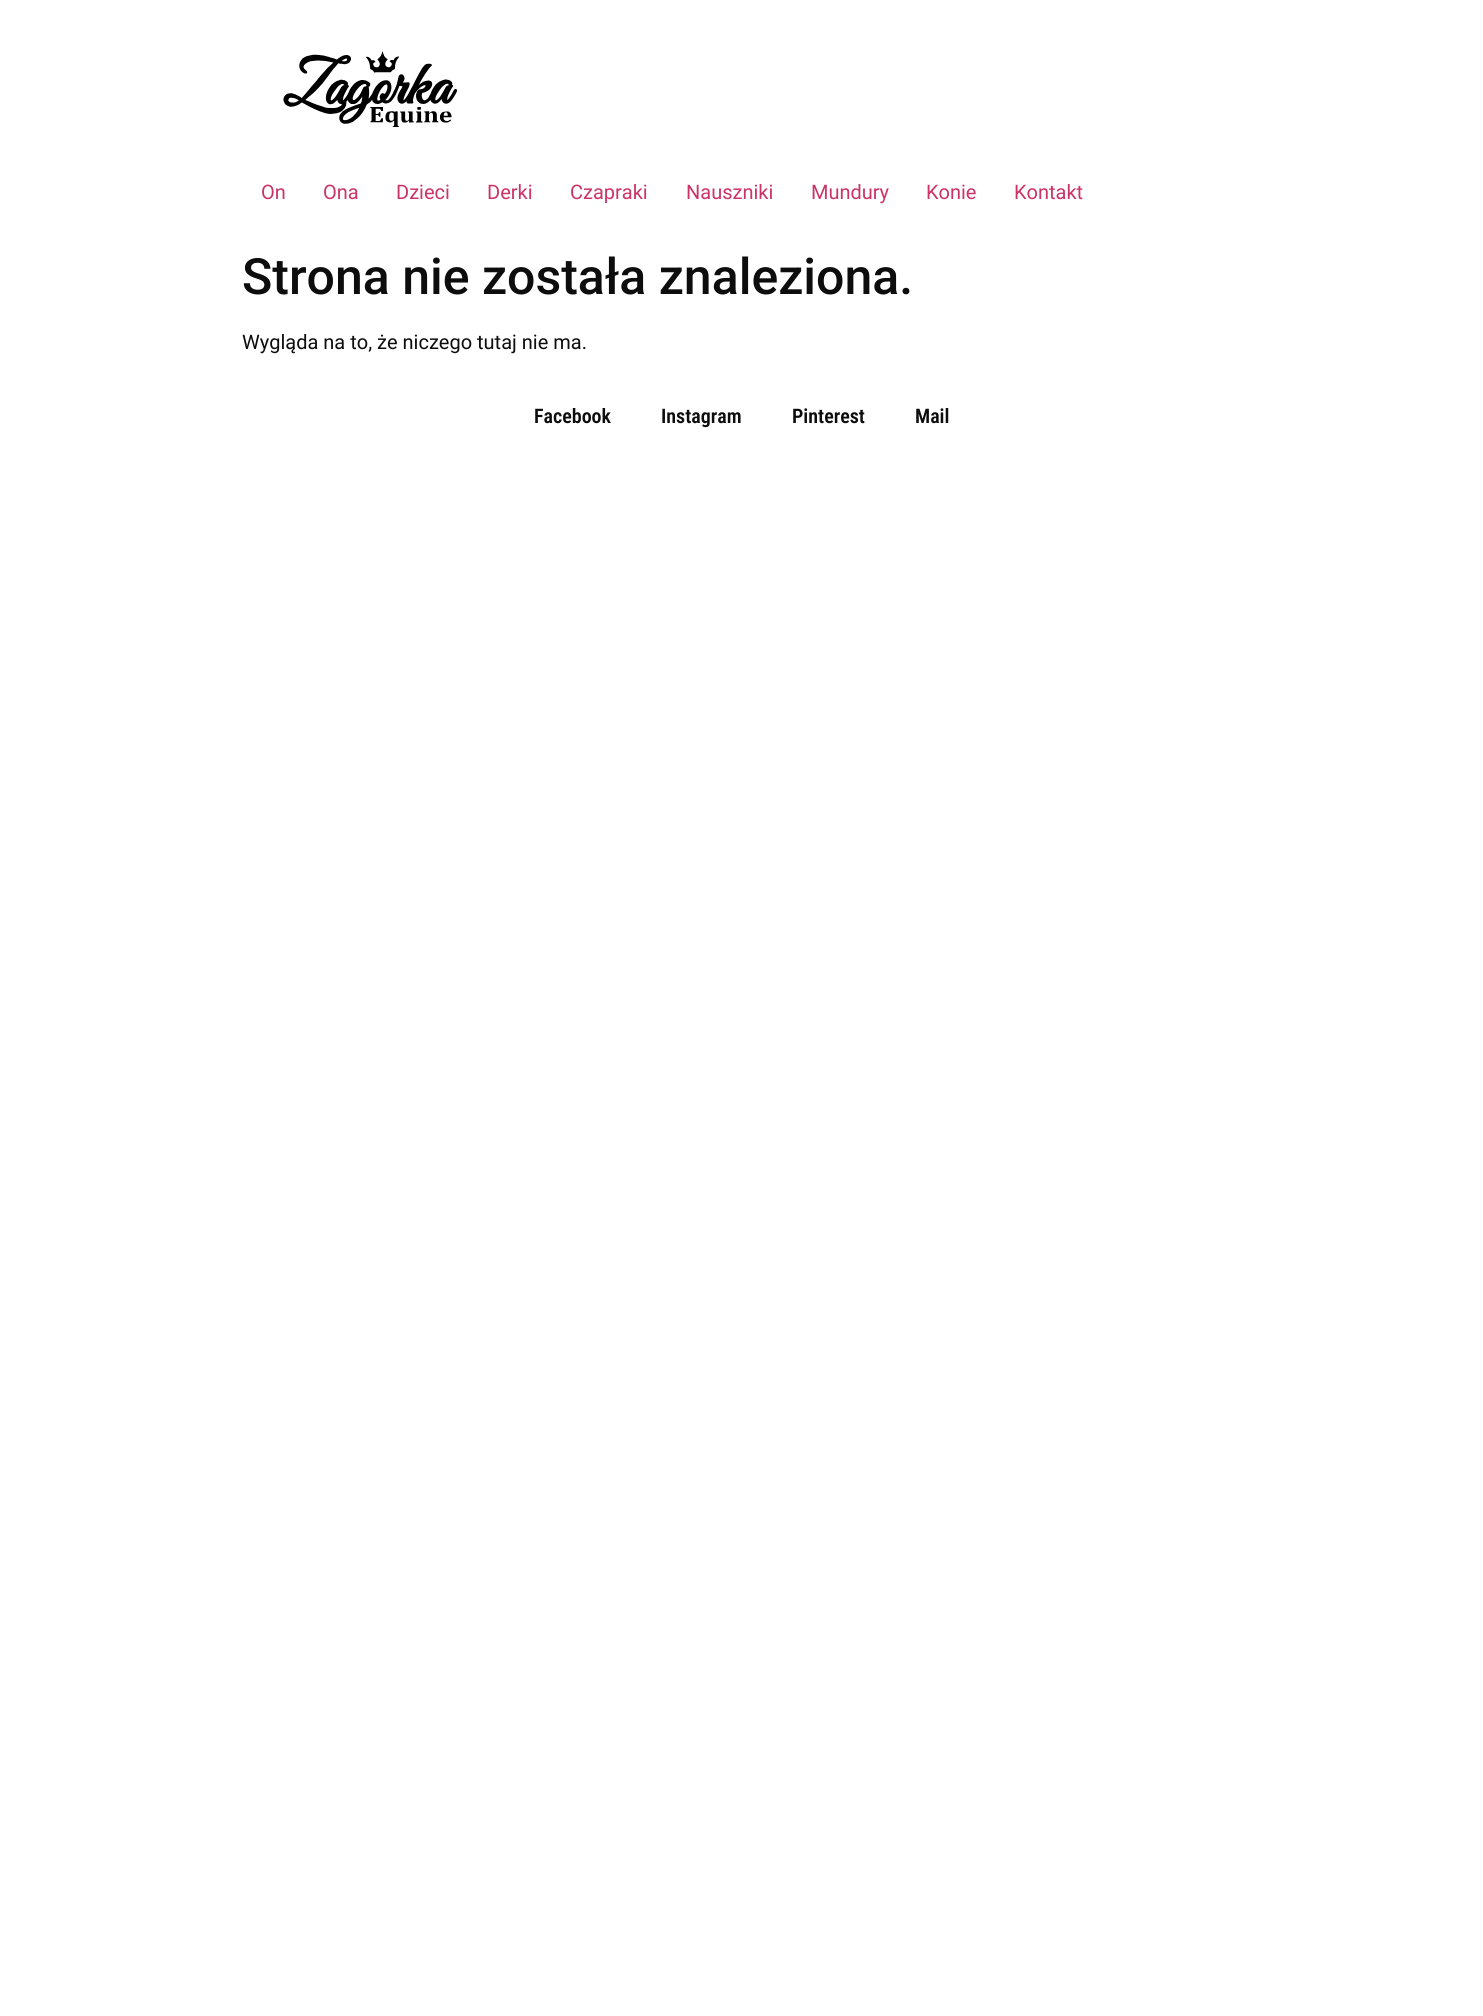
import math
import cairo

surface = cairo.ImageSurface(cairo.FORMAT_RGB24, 1483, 2016)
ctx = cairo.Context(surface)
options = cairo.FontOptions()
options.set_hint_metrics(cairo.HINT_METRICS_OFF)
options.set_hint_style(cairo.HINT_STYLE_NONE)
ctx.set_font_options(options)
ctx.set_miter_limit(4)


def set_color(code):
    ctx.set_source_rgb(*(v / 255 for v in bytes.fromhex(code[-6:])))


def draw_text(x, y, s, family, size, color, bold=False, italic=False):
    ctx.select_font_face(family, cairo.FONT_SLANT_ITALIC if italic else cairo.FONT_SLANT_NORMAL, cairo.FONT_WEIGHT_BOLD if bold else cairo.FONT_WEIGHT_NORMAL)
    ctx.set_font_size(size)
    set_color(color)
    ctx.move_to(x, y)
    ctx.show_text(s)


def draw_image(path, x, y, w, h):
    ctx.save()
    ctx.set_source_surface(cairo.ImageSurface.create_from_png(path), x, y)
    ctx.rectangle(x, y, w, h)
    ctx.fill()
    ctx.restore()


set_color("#ffffff")
ctx.paint()
draw_image("assets/img1.png", 283, 51, 174, 76)
draw_text(261, 199, "On", "Roboto", 20, "#cc3366")
draw_text(323, 199, "Ona", "Roboto", 20, "#cc3366")
draw_text(396, 199, "Dzieci", "Roboto", 20, "#cc3366")
draw_text(487, 199, "Derki", "Roboto", 20, "#cc3366")
draw_text(570, 199, "Czapraki", "Roboto", 20, "#cc3366")
draw_text(686, 199, "Nauszniki", "Roboto", 20, "#cc3366")
draw_text(811, 199, "Mundury", "Roboto", 20, "#cc3366")
draw_text(926, 199, "Konie", "Roboto", 20, "#cc3366")
draw_text(1014, 199, "Kontakt", "Roboto", 20, "#cc3366")
draw_text(242, 294, "Strona nie została znaleziona.", "Roboto Medium", 50, "#0d0d0d")
draw_text(242, 349, "Wygląda na to, że niczego tutaj nie ma.", "Roboto", 20, "#0d0d0d")
draw_text(534, 423, "Facebook", "Roboto Condensed SemiBold", 20, "#0d0d0d")
draw_text(661, 423, "Instagram", "Roboto Condensed SemiBold", 20, "#0d0d0d")
draw_text(792, 423, "Pinterest", "Roboto Condensed SemiBold", 20, "#0d0d0d")
draw_text(915, 423, "Mail", "Roboto Condensed SemiBold", 20, "#0d0d0d")
surface.write_to_png("output.png")
